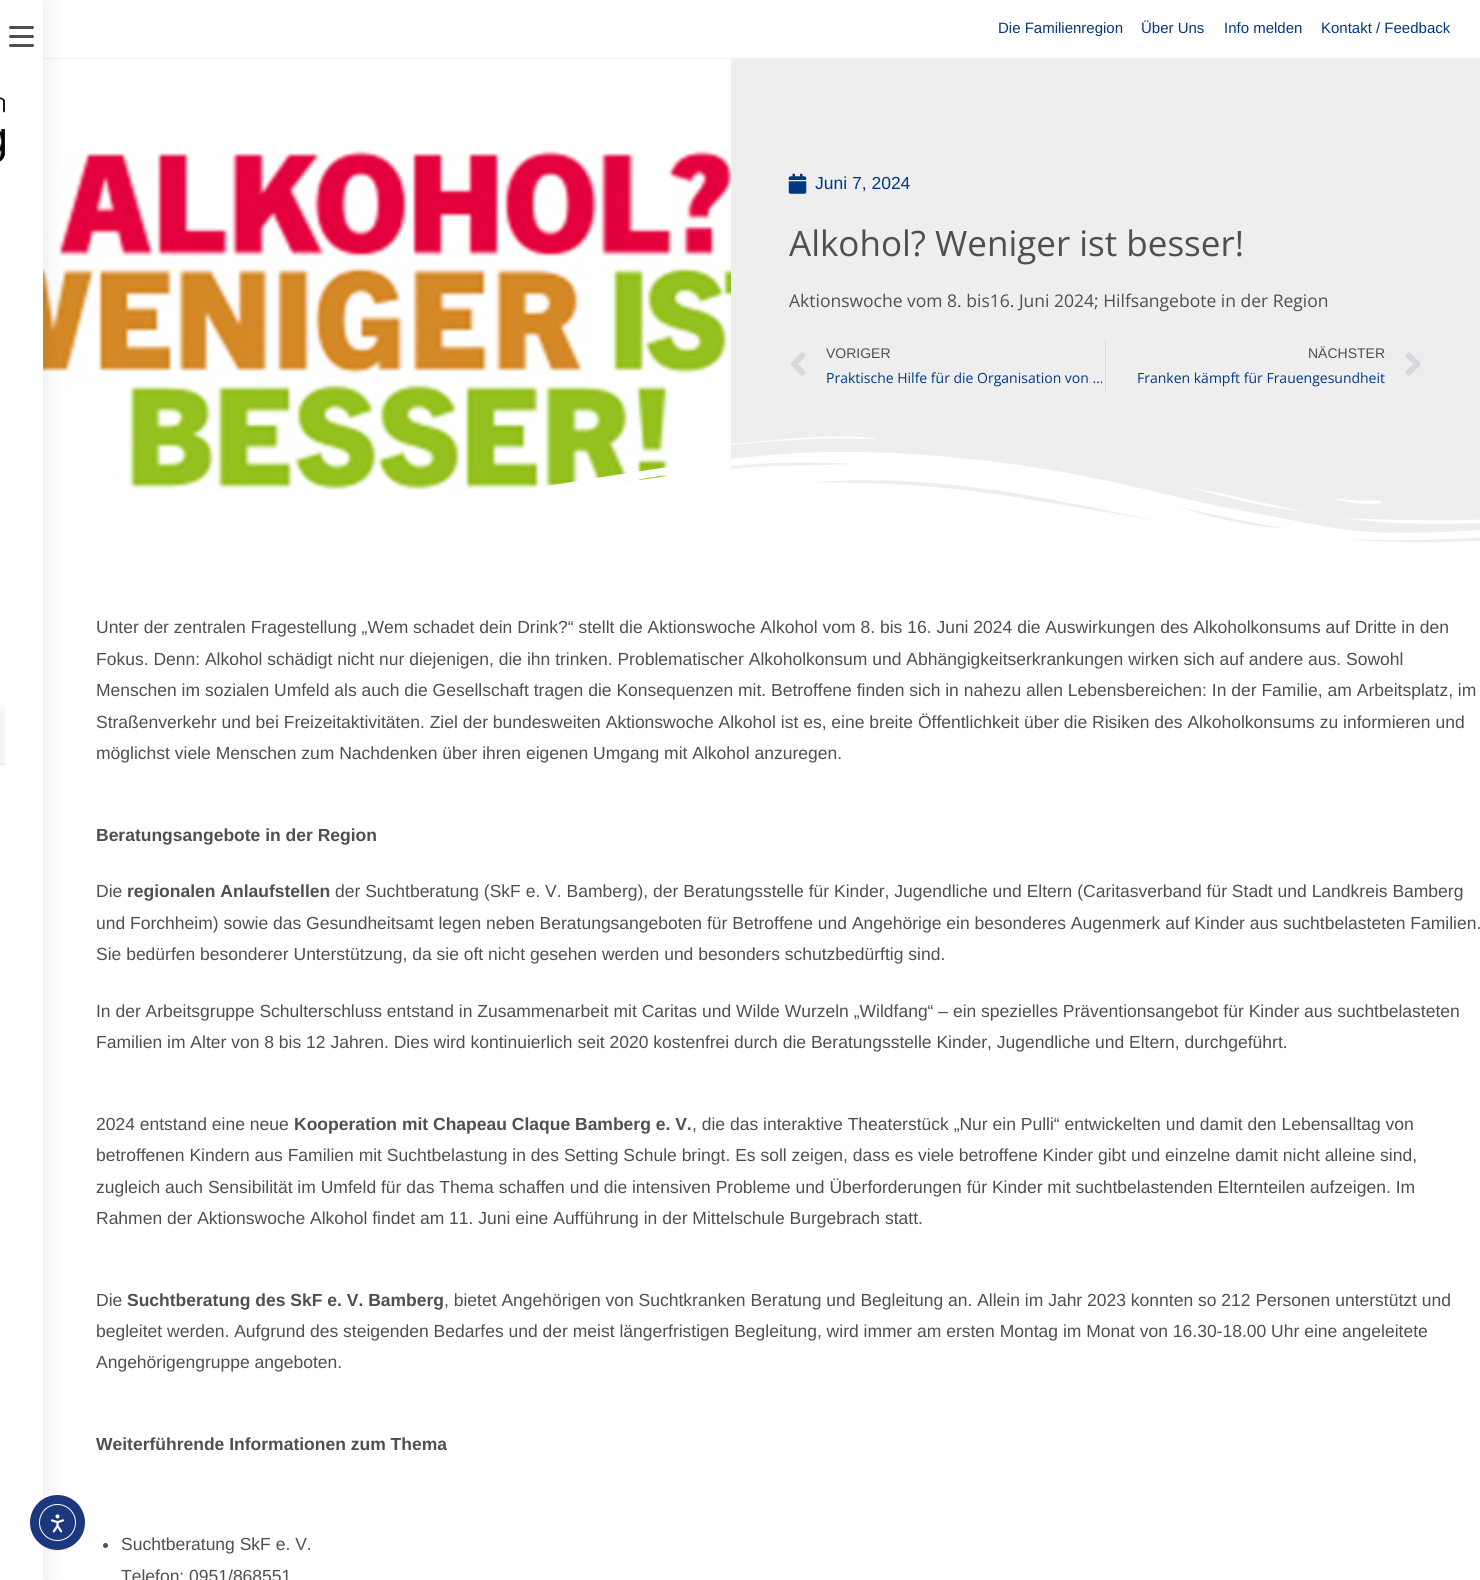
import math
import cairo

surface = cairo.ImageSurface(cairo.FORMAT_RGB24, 1480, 1580)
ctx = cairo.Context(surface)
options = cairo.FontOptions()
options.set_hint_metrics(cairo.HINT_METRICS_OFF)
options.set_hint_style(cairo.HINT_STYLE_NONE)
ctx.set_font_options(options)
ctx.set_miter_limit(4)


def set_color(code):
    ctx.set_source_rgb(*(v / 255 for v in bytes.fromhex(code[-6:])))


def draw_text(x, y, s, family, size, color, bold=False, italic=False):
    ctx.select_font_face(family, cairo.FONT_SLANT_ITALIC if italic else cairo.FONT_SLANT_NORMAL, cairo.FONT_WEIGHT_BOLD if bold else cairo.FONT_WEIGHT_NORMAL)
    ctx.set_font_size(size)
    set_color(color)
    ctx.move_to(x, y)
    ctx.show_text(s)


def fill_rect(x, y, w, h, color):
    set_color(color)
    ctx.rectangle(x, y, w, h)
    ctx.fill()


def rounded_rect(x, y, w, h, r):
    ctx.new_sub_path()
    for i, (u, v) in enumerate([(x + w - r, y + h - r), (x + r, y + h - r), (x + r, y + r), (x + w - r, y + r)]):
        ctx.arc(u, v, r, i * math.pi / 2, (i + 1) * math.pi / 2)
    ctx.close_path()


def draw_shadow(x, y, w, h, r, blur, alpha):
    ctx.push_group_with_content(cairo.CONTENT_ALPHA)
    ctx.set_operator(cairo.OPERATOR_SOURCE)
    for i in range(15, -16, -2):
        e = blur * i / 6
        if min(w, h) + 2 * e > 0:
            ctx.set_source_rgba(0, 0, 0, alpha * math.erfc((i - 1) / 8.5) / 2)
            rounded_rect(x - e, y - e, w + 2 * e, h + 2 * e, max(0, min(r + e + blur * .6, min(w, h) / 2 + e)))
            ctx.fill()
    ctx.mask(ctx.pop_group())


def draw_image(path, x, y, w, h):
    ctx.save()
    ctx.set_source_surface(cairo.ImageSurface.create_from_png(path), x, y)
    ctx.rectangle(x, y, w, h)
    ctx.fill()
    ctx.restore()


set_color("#ffffff")
ctx.paint()
fill_rect(43, 58, 1437, 1, "#f1f1f1")
draw_image("assets/img3.png", 43, 59, 688, 481)
fill_rect(731, 59, 749, 484, "#eeeeee")
draw_image("assets/img7.png", 43, 436, 1437, 123)
set_color("#000000")
draw_shadow(-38, 0, 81, 1580, 0, 12.5, 0.1)
fill_rect(0, 0, 43, 1580, "#ffffff")
set_color("#1b387f")
ctx.arc(57.5, 1522.5, 27.5, 0, 2 * math.pi)
ctx.fill()
ctx.arc(57.5, 1522.5, 18, 0, 2 * math.pi)
set_color("#ffffff")
ctx.set_line_width(1)
ctx.stroke()
draw_image("assets/img1.png", 50, 1514, 14, 19)
fill_rect(0, 765, 4, 1, "#f5f5f5")
set_color("#4f4f4f")
rounded_rect(9, 35, 25, 3, 1.5)
ctx.fill()
rounded_rect(9, 26, 25, 3, 1.5)
ctx.fill()
rounded_rect(9, 44, 25, 3, 1.5)
ctx.fill()
draw_image("assets/img2.png", 0, 97, 5, 65)
fill_rect(0, 705, 5, 60, "#f7f7f7")
fill_rect(0, 763, 4, 2, "#ededed")
draw_text(998, 33, "Die Familienregion", "Liberation Sans", 15, "#003882")
draw_text(1141, 33, "Über Uns", "Liberation Sans", 15, "#003882")
draw_text(1224, 33, "Info melden", "Liberation Sans", 15, "#003882")
draw_text(1321, 33, "Kontakt / Feedback", "Liberation Sans", 15, "#003882")
draw_image("assets/img4.png", 788, 173, 19, 21)
draw_text(815, 189, "Juni 7, 2024", "Liberation Sans", 17.5, "#003882")
draw_text(789, 256, "Alkohol? Weniger ist besser!", "Open Sans", 35, "#4f4f4f")
draw_text(789, 307, "Aktionswoche vom 8. bis16. Juni 2024; Hilfsangebote in der Region", "Open Sans", 17.5, "#4f4f4f")
draw_image("assets/img5.png", 790, 352, 16, 24)
draw_text(826, 358, "VORIGER", "Liberation Sans", 14, "#4f4f4f")
draw_text(826, 383, "Praktische Hilfe für die Organisation von …", "Open Sans", 14, "#003882")
fill_rect(1105, 341, 1, 50, "#d5d8dc")
draw_text(1308, 358, "NÄCHSTER", "Liberation Sans", 14, "#4f4f4f")
draw_text(1137, 383, "Franken kämpft für Frauengesundheit", "Open Sans", 14, "#003882")
draw_image("assets/img6.png", 1405, 352, 16, 24)
draw_text(96, 633, "Unter der zentralen Fragestellung „Wem schadet dein Drink?“ stellt die Aktionswoche Alkohol vom 8. bis 16. Juni 2024 die Auswirkungen des Alkoholkonsums auf Dritte in den", "Liberation Sans", 17.5, "#4f4f4f")
draw_text(96, 665, "Fokus. Denn: Alkohol schädigt nicht nur diejenigen, die ihn trinken. Problematischer Alkoholkonsum und Abhängigkeitserkrankungen wirken sich auf andere aus. Sowohl", "Liberation Sans", 17.5, "#4f4f4f")
draw_text(96, 696, "Menschen im sozialen Umfeld als auch die Gesellschaft tragen die Konsequenzen mit. Betroffene finden sich in nahezu allen Lebensbereichen: In der Familie, am Arbeitsplatz, im", "Liberation Sans", 17.5, "#4f4f4f")
draw_text(96, 728, "Straßenverkehr und bei Freizeitaktivitäten. Ziel der bundesweiten Aktionswoche Alkohol ist es, eine breite Öffentlichkeit über die Risiken des Alkoholkonsums zu informieren und", "Liberation Sans", 17.5, "#4f4f4f")
draw_text(96, 759, "möglichst viele Menschen zum Nachdenken über ihren eigenen Umgang mit Alkohol anzuregen.", "Liberation Sans", 17.5, "#4f4f4f")
draw_text(96, 841, "Beratungsangebote in der Region", "Liberation Sans", 17.5, "#4f4f4f", bold=True)
draw_text(96, 897, "Die", "Liberation Sans", 17.5, "#4f4f4f")
draw_text(127, 897, "regionalen Anlaufstellen", "Liberation Sans", 17.5, "#4f4f4f", bold=True)
draw_text(335, 897, "der Suchtberatung (SkF e. V. Bamberg), der Beratungsstelle für Kinder, Jugendliche und Eltern (Caritasverband für Stadt und Landkreis Bamberg", "Liberation Sans", 17.5, "#4f4f4f")
draw_text(96, 929, "und Forchheim) sowie das Gesundheitsamt legen neben Beratungsangeboten für Betroffene und Angehörige ein besonderes Augenmerk auf Kinder aus suchtbelasteten Familien.", "Liberation Sans", 17.5, "#4f4f4f")
draw_text(96, 960, "Sie bedürfen besonderer Unterstützung, da sie oft nicht gesehen werden und besonders schutzbedürftig sind.", "Liberation Sans", 17.5, "#4f4f4f")
draw_text(96, 1017, "In der Arbeitsgruppe Schulterschluss entstand in Zusammenarbeit mit Caritas und Wilde Wurzeln „Wildfang“ – ein spezielles Präventionsangebot für Kinder aus suchtbelasteten", "Liberation Sans", 17.5, "#4f4f4f")
draw_text(96, 1048, "Familien im Alter von 8 bis 12 Jahren. Dies wird kontinuierlich seit 2020 kostenfrei durch die Beratungsstelle Kinder, Jugendliche und Eltern, durchgeführt.", "Liberation Sans", 17.5, "#4f4f4f")
draw_text(96, 1130, "2024 entstand eine neue", "Liberation Sans", 17.5, "#4f4f4f")
draw_text(294, 1130, "Kooperation mit Chapeau Claque Bamberg e. V.", "Liberation Sans", 17.5, "#4f4f4f", bold=True)
draw_text(692, 1130, ", die das interaktive Theaterstück „Nur ein Pulli“ entwickelten und damit den Lebensalltag von", "Liberation Sans", 17.5, "#4f4f4f")
draw_text(96, 1161, "betroffenen Kindern aus Familien mit Suchtbelastung in des Setting Schule bringt. Es soll zeigen, dass es viele betroffene Kinder gibt und einzelne damit nicht alleine sind,", "Liberation Sans", 17.5, "#4f4f4f")
draw_text(96, 1193, "zugleich auch Sensibilität im Umfeld für das Thema schaffen und die intensiven Probleme und Überforderungen für Kinder mit suchtbelastenden Elternteilen aufzeigen. Im", "Liberation Sans", 17.5, "#4f4f4f")
draw_text(96, 1224, "Rahmen der Aktionswoche Alkohol findet am 11. Juni eine Aufführung in der Mittelschule Burgebrach statt.", "Liberation Sans", 17.5, "#4f4f4f")
draw_text(96, 1306, "Die", "Liberation Sans", 17.5, "#4f4f4f")
draw_text(127, 1306, "Suchtberatung des SkF e. V. Bamberg", "Liberation Sans", 17.5, "#4f4f4f", bold=True)
draw_text(444, 1306, ", bietet Angehörigen von Suchtkranken Beratung und Begleitung an. Allein im Jahr 2023 konnten so 212 Personen unterstützt und", "Liberation Sans", 17.5, "#4f4f4f")
draw_text(96, 1337, "begleitet werden. Aufgrund des steigenden Bedarfes und der meist längerfristigen Begleitung, wird immer am ersten Montag im Monat von 16.30-18.00 Uhr eine angeleitete", "Liberation Sans", 17.5, "#4f4f4f")
draw_text(96, 1368, "Angehörigengruppe angeboten.", "Liberation Sans", 17.5, "#4f4f4f")
draw_text(96, 1450, "Weiterführende Informationen zum Thema", "Liberation Sans", 17.5, "#4f4f4f", bold=True)
ctx.new_path()
ctx.arc(105.5, 1545.5, 2.5, 0, 2 * math.pi)
ctx.fill()
draw_text(121, 1550, "Suchtberatung SkF e. V.", "Liberation Sans", 17.5, "#4f4f4f")
draw_text(121, 1582, "Telefon: 0951/868551", "Liberation Sans", 17.5, "#4f4f4f")
surface.write_to_png("output.png")
